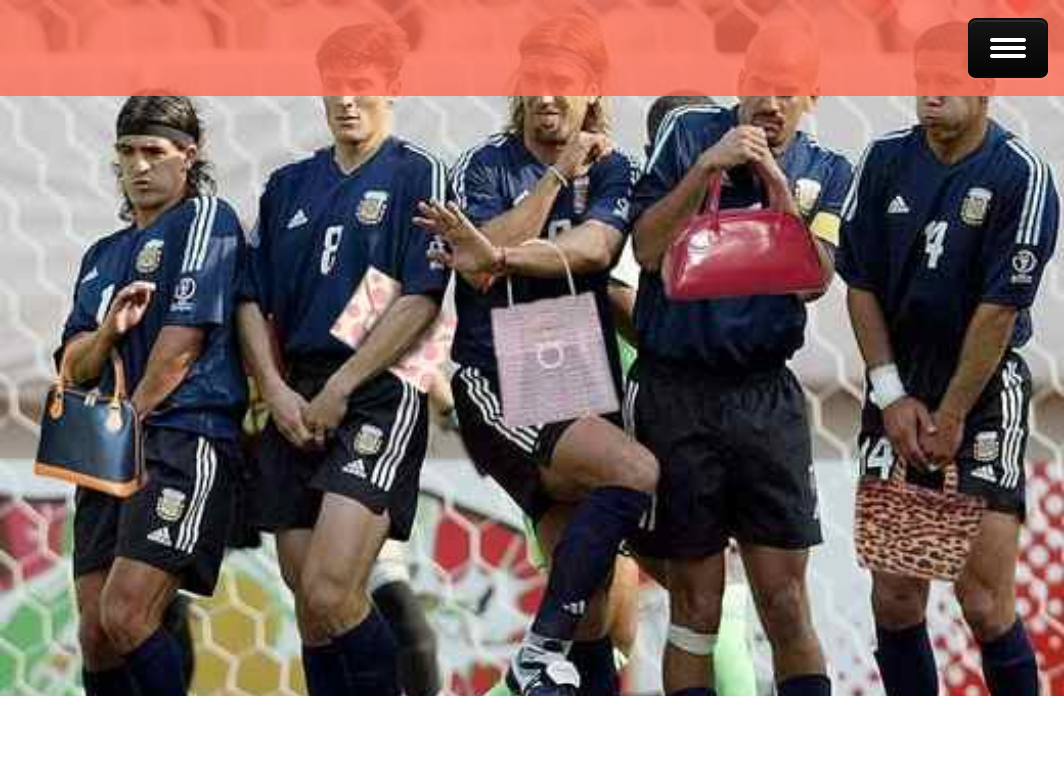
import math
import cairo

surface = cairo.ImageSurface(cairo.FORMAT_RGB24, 1064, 774)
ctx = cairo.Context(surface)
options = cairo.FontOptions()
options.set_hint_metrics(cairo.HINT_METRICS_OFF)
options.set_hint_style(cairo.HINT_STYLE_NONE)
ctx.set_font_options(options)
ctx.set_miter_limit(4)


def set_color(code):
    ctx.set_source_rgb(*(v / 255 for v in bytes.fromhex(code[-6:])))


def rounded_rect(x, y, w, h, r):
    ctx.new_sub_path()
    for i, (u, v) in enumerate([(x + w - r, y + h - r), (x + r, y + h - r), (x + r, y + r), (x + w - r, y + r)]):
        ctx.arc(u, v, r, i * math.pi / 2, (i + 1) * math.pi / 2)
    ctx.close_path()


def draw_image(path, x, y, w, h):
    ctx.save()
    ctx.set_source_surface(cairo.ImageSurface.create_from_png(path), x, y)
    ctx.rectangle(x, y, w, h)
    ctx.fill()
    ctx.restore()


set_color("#ffffff")
ctx.paint()
draw_image("assets/img1.png", 0, 0, 1064, 696)
ctx.set_source_rgba(0.992, 0.42, 0.329, 0.8)
ctx.rectangle(0, 0, 1064, 96)
ctx.fill()
ctx.set_source_rgba(1, 1, 1, 0.07)
ctx.new_path()
ctx.move_to(968, 70)
ctx.curve_to(968, 82, 977, 80, 987, 80)
ctx.line_to(1029, 80)
ctx.curve_to(1039, 80, 1048, 82, 1048, 70)
ctx.curve_to(1048, 74, 1044, 78, 1040, 78)
ctx.line_to(976, 78)
ctx.curve_to(972, 78, 968, 74, 968, 70)
ctx.close_path()
ctx.fill()
set_color("#0e0e0e")
rounded_rect(968, 18, 80, 60, 8)
ctx.fill()
ctx.save()
rounded_rect(968, 18, 80, 60, 8)
ctx.clip()
gradient = cairo.LinearGradient(1008, 20, 1008, 76)
gradient.add_color_stop_rgba(0, 0.082, 0.082, 0.082, 1)
gradient.add_color_stop_rgba(1, 0.016, 0.016, 0.016, 1)
ctx.set_source(gradient)
ctx.rectangle(968, 20, 80, 56)
ctx.fill()
ctx.restore()
set_color("#2c2c2c")
ctx.new_path()
ctx.move_to(976, 22)
ctx.line_to(1040, 22)
ctx.curve_to(1043, 22, 1046, 25, 1046, 28)
ctx.curve_to(1046, 18, 1038, 20, 1029, 20)
ctx.line_to(987, 20)
ctx.curve_to(978, 20, 970, 18, 970, 28)
ctx.curve_to(970, 25, 973, 22, 976, 22)
ctx.close_path()
ctx.fill()
ctx.new_path()
ctx.move_to(1045, 75)
ctx.curve_to(1043.5, 76.5, 1042, 77, 1040, 77)
ctx.line_to(976, 77)
ctx.curve_to(974, 77, 972.5, 76.5, 971, 75)
ctx.set_source_rgba(0, 0, 0, 0.25)
ctx.stroke()
ctx.new_path()
ctx.move_to(971, 75)
ctx.curve_to(969.5, 73.5, 969, 72, 969, 70)
ctx.line_to(969, 26)
ctx.curve_to(969, 24, 969.5, 22.5, 971, 21)
ctx.curve_to(972.5, 19.5, 974, 19, 976, 19)
ctx.line_to(1040, 19)
ctx.curve_to(1042, 19, 1043.5, 19.5, 1045, 21)
ctx.curve_to(1046.5, 22.5, 1047, 24, 1047, 26)
ctx.line_to(1047, 70)
ctx.curve_to(1047, 72, 1046.5, 73.5, 1045, 75)
ctx.set_source_rgba(0, 0, 0, 0.1)
ctx.stroke()
set_color("#0b0b0b")
ctx.new_path()
ctx.move_to(990.5, 41)
ctx.curve_to(988, 45, 997, 44, 997.5, 44)
ctx.line_to(1018.5, 44)
ctx.curve_to(1019, 44, 1028, 45, 1025.5, 41)
ctx.curve_to(1025.5, 41.5, 1024.5, 42, 1024, 42)
ctx.line_to(992, 42)
ctx.curve_to(991.5, 42, 990.5, 41.5, 990.5, 41)
ctx.close_path()
ctx.fill()
set_color("#ffffff")
rounded_rect(990, 38, 36, 4, 2)
ctx.fill()
set_color("#090909")
ctx.new_path()
ctx.move_to(990.5, 49)
ctx.curve_to(988, 53, 997, 52, 997.5, 52)
ctx.line_to(1018.5, 52)
ctx.curve_to(1019, 52, 1028, 53, 1025.5, 49)
ctx.curve_to(1025.5, 49.5, 1024.5, 50, 1024, 50)
ctx.line_to(992, 50)
ctx.curve_to(991.5, 50, 990.5, 49.5, 990.5, 49)
ctx.close_path()
ctx.fill()
set_color("#ffffff")
rounded_rect(990, 46, 36, 4, 2)
ctx.fill()
rounded_rect(990, 54, 36, 4, 2)
ctx.fill()
surface.write_to_png("output.png")
